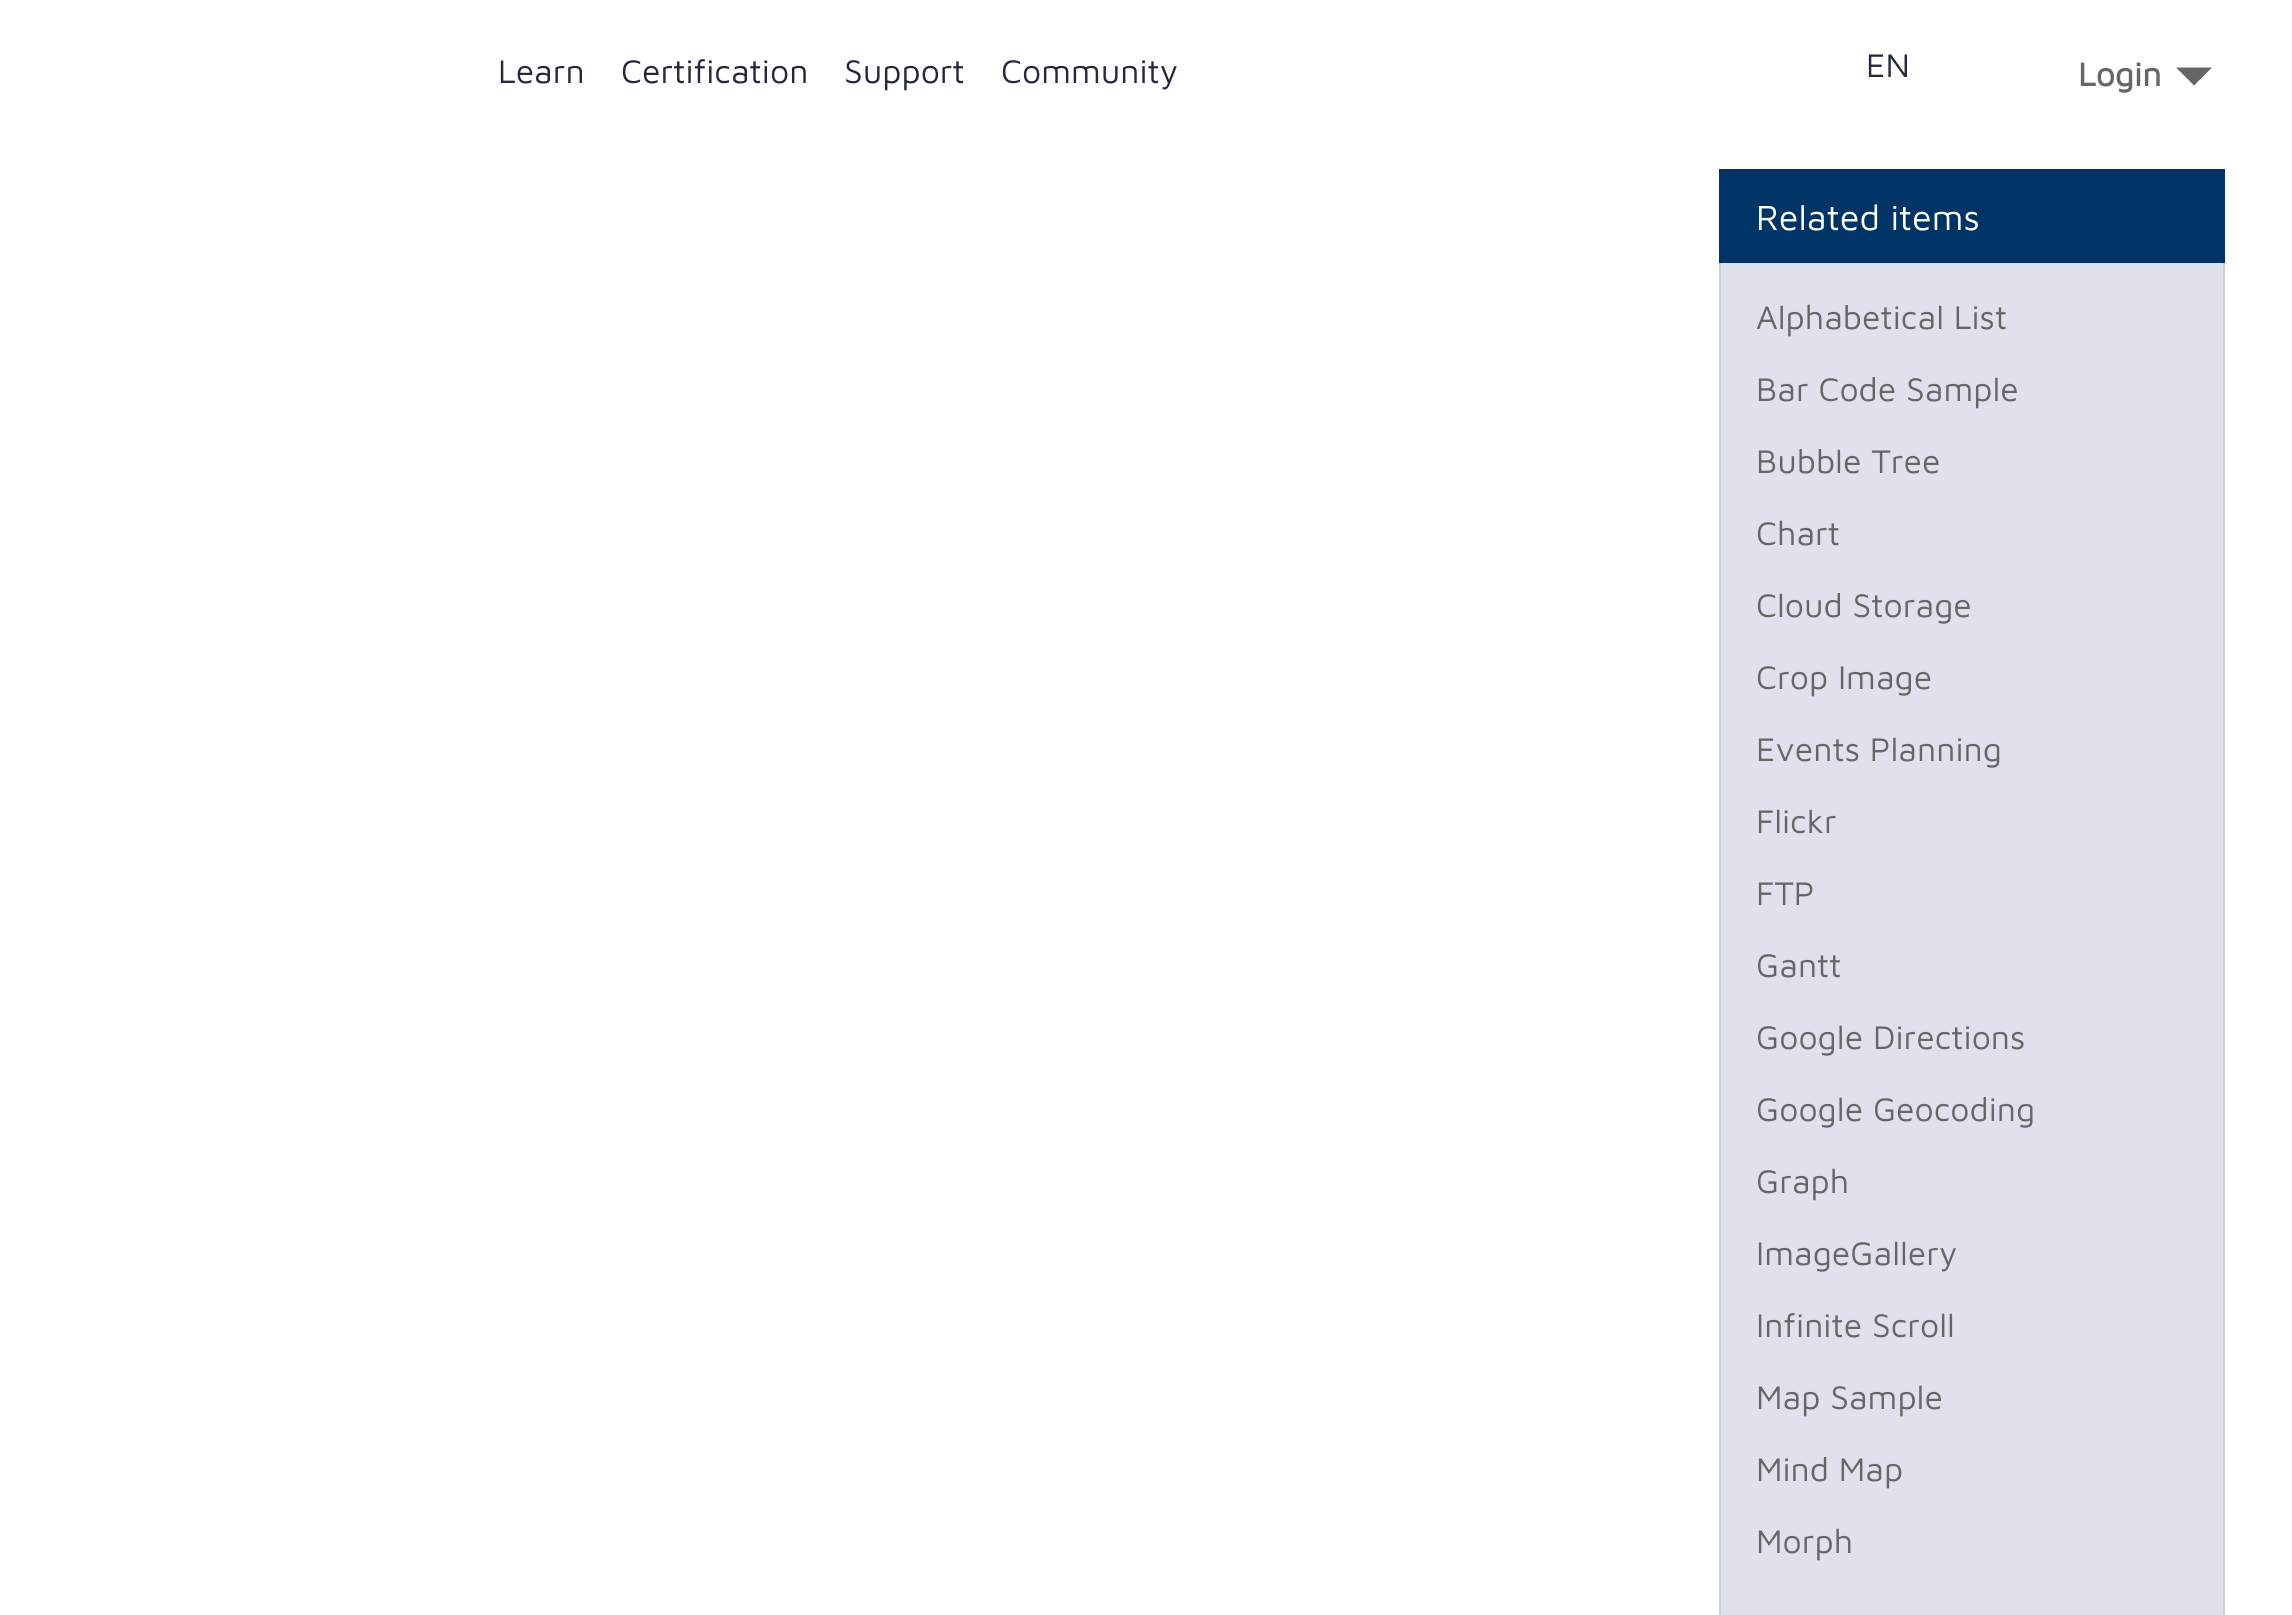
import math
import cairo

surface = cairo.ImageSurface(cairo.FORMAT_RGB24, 2292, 1615)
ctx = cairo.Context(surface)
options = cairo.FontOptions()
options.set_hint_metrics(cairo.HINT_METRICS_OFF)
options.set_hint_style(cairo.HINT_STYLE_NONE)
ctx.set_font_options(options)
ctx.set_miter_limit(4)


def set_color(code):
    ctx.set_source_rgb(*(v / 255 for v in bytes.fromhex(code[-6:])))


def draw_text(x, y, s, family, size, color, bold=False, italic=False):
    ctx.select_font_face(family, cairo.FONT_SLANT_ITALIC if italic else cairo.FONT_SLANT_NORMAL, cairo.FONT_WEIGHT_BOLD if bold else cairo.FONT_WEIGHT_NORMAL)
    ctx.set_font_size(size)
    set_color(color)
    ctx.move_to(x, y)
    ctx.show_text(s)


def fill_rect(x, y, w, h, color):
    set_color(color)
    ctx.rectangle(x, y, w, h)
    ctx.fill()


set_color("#ffffff")
ctx.paint()
draw_text(498, 83, "Learn", "Maven Pro", 33.75, "#22293c")
draw_text(621, 83, "Certification", "Maven Pro", 33.75, "#22293c")
draw_text(844, 83, "Support", "Maven Pro", 33.75, "#22293c")
draw_text(1001, 83, "Community", "Maven Pro", 33.75, "#22293c")
draw_text(1866, 77, "EN", "Maven Pro", 33.75, "#22293c")
draw_text(2078, 86, "Login", "Maven Pro", 33.75, "#666666", bold=True)
ctx.new_path()
ctx.move_to(2176, 67.5)
ctx.line_to(2212, 67.5)
ctx.line_to(2194, 85.5)
ctx.close_path()
ctx.fill()
fill_rect(1719, 169, 506, 94, "#003366")
draw_text(1756, 230, "Related items", "Maven Pro", 36, "#ffffff")
fill_rect(1721, 263, 502, 1352, "#dfe2ec")
fill_rect(2223, 263, 2, 1352, "#cccccc")
fill_rect(1719, 263, 2, 1352, "#cccccc")
draw_text(1756, 329, "Alphabetical List", "Maven Pro", 33.75, "#666666")
draw_text(1756, 401, "Bar Code Sample", "Maven Pro", 33.75, "#666666")
draw_text(1756, 473, "Bubble Tree", "Maven Pro", 33.75, "#666666")
draw_text(1756, 545, "Chart", "Maven Pro", 33.75, "#666666")
draw_text(1756, 617, "Cloud Storage", "Maven Pro", 33.75, "#666666")
draw_text(1756, 689, "Crop Image", "Maven Pro", 33.75, "#666666")
draw_text(1756, 761, "Events Planning", "Maven Pro", 33.75, "#666666")
draw_text(1756, 833, "Flickr", "Maven Pro", 33.75, "#666666")
draw_text(1756, 905, "FTP", "Maven Pro", 33.75, "#666666")
draw_text(1756, 977, "Gantt", "Maven Pro", 33.75, "#666666")
draw_text(1756, 1049, "Google Directions", "Maven Pro", 33.75, "#666666")
draw_text(1756, 1121, "Google Geocoding", "Maven Pro", 33.75, "#666666")
draw_text(1756, 1193, "Graph", "Maven Pro", 33.75, "#666666")
draw_text(1756, 1265, "ImageGallery", "Maven Pro", 33.75, "#666666")
draw_text(1756, 1337, "Infinite Scroll", "Maven Pro", 33.75, "#666666")
draw_text(1756, 1409, "Map Sample", "Maven Pro", 33.75, "#666666")
draw_text(1756, 1481, "Mind Map", "Maven Pro", 33.75, "#666666")
draw_text(1756, 1553, "Morph", "Maven Pro", 33.75, "#666666")
surface.write_to_png("output.png")
